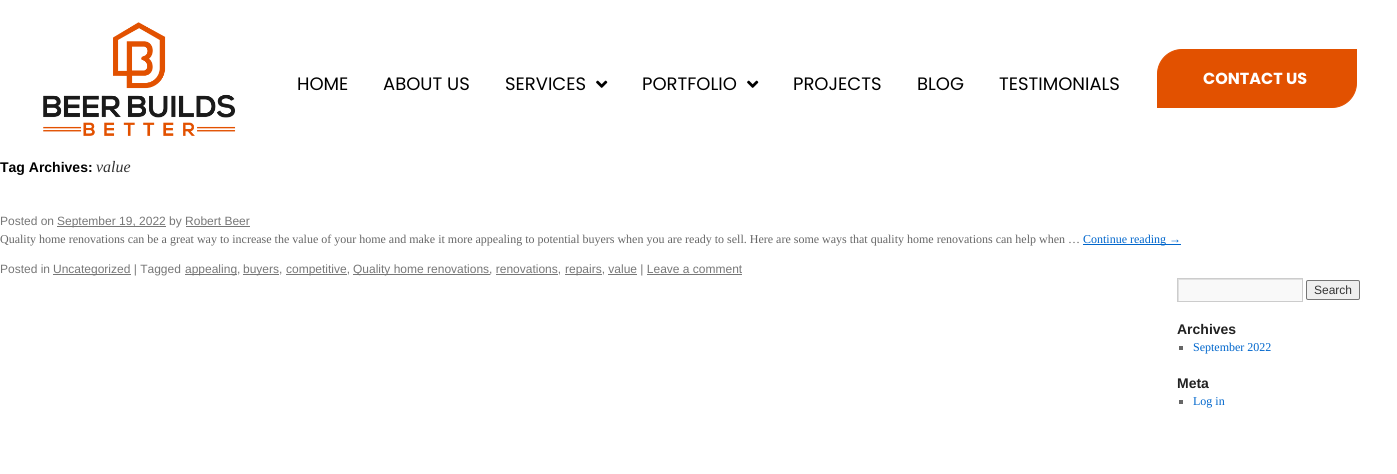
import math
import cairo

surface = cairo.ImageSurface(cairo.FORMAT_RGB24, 1397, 474)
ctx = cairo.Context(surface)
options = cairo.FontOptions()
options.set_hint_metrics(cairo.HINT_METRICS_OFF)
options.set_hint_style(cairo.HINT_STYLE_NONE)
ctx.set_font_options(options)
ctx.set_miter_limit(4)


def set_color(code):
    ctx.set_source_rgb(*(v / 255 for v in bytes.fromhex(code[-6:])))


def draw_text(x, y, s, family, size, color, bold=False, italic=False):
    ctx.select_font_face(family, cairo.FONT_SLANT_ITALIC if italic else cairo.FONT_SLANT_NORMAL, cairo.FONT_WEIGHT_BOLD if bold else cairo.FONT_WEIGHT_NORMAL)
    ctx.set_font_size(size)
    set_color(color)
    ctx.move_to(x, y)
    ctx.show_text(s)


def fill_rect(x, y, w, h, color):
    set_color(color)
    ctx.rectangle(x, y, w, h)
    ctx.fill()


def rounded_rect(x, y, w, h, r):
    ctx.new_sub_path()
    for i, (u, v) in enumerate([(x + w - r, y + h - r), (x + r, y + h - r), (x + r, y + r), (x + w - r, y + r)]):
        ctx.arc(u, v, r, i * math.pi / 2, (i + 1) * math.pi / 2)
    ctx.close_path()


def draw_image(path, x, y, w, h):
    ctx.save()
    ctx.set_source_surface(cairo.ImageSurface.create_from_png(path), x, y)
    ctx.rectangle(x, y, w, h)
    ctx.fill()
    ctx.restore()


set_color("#ffffff")
ctx.paint()
draw_image("assets/img1.png", 43, 22, 193, 114)
draw_text(297, 90, "HOME", "Poppins", 18, "#000000")
draw_text(383, 90, "ABOUT US", "Poppins", 18, "#000000")
draw_text(505, 90, "SERVICES", "Poppins", 18, "#000000")
draw_image("assets/img2.png", 596, 80, 12, 8)
draw_text(642, 90, "PORTFOLIO", "Poppins", 18, "#000000")
draw_image("assets/img2.png", 747, 80, 12, 8)
draw_text(793, 90, "PROJECTS", "Poppins", 18, "#000000")
draw_text(917, 90, "BLOG", "Poppins", 18, "#000000")
draw_text(999, 90, "TESTIMONIALS", "Poppins", 18, "#000000")
set_color("#e25100")
ctx.new_path()
ctx.move_to(1182, 49.5)
ctx.line_to(1356.5, 49.5)
ctx.line_to(1356.5, 83)
ctx.curve_to(1356.5, 96.5, 1345.5, 107.5, 1332, 107.5)
ctx.line_to(1157.5, 107.5)
ctx.line_to(1157.5, 74)
ctx.curve_to(1157.5, 60.5, 1168.5, 49.5, 1182, 49.5)
ctx.close_path()
ctx.fill_preserve()
ctx.set_line_width(1)
ctx.stroke()
draw_text(1203, 84, "CONTACT US", "Poppins", 16, "#ffffff", bold=True)
draw_text(0, 172, "Tag Archives:", "Liberation Sans", 14, "#000000", bold=True)
draw_text(96, 172, "value", "Liberation Serif", 16, "#333333", italic=True)
draw_text(0, 225, "Posted on", "Liberation Sans", 12, "#777777")
fill_rect(57, 226, 109, 1, "#777777")
draw_text(57, 225, "September 19, 2022 by Robert Beer", "Liberation Sans", 12, "#777777")
fill_rect(186, 226, 64, 1, "#777777")
draw_text(0, 243, "Quality home renovations can be a great way to increase the value of your home and make it more appealing to potential buyers when you are ready to sell. Here are some ways that quality home renovations can help when …", "Liberation Serif", 12, "#666666")
fill_rect(1083, 244, 98, 1, "#0066cc")
draw_text(1083, 243, "Continue reading →", "Liberation Serif", 12, "#0066cc")
draw_text(0, 273, "Posted in", "Liberation Sans", 12, "#777777")
fill_rect(53, 274, 78, 1, "#777777")
draw_text(53, 273, "Uncategorized | Tagged", "Liberation Sans", 12, "#777777")
fill_rect(185, 274, 52, 1, "#777777")
draw_text(185, 273, "appealing,", "Liberation Sans", 12, "#777777")
fill_rect(243, 274, 36, 1, "#777777")
draw_text(243, 273, "buyers,", "Liberation Sans", 12, "#777777")
fill_rect(286, 274, 61, 1, "#777777")
draw_text(286, 273, "competitive,", "Liberation Sans", 12, "#777777")
fill_rect(353, 274, 137, 1, "#777777")
draw_text(353, 273, "Quality home renovations, renovations,", "Liberation Sans", 12, "#777777")
fill_rect(496, 274, 62, 1, "#777777")
fill_rect(565, 274, 37, 1, "#777777")
draw_text(565, 273, "repairs, value | Leave a comment", "Liberation Sans", 12, "#777777")
fill_rect(608, 274, 29, 1, "#777777")
fill_rect(647, 274, 95, 1, "#777777")
fill_rect(1179, 280, 123, 21, "#f9f9f9")
ctx.save()
ctx.rectangle(1178, 279, 124, 22)
ctx.clip()
set_color("#e0e0e0")
ctx.set_fill_rule(cairo.FILL_RULE_EVEN_ODD)
ctx.new_path()
ctx.move_to(1079, 180)
ctx.line_to(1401, 180)
ctx.line_to(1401, 400)
ctx.line_to(1079, 400)
ctx.close_path()
ctx.move_to(1179, 280)
ctx.line_to(1303, 280)
ctx.line_to(1303, 302)
ctx.line_to(1179, 302)
ctx.close_path()
ctx.fill()
ctx.restore()
ctx.rectangle(1177.5, 278.5, 125, 23)
set_color("#cccccc")
ctx.stroke()
set_color("#efefef")
rounded_rect(1306.5, 280.5, 53, 19, 1.5)
ctx.fill_preserve()
set_color("#767676")
ctx.stroke()
draw_text(1314, 294, "Search", "Liberation Sans", 12, "#333333")
draw_text(1177, 334, "Archives", "Liberation Sans", 14, "#222222", bold=True)
fill_rect(1179, 346, 4, 4, "#666666")
draw_text(1193, 351, "September 2022", "Liberation Serif", 12, "#0066cc")
draw_text(1177, 388, "Meta", "Liberation Sans", 14, "#222222", bold=True)
fill_rect(1179, 400, 4, 4, "#666666")
draw_text(1193, 405, "Log in", "Liberation Serif", 12, "#0066cc")
surface.write_to_png("output.png")
